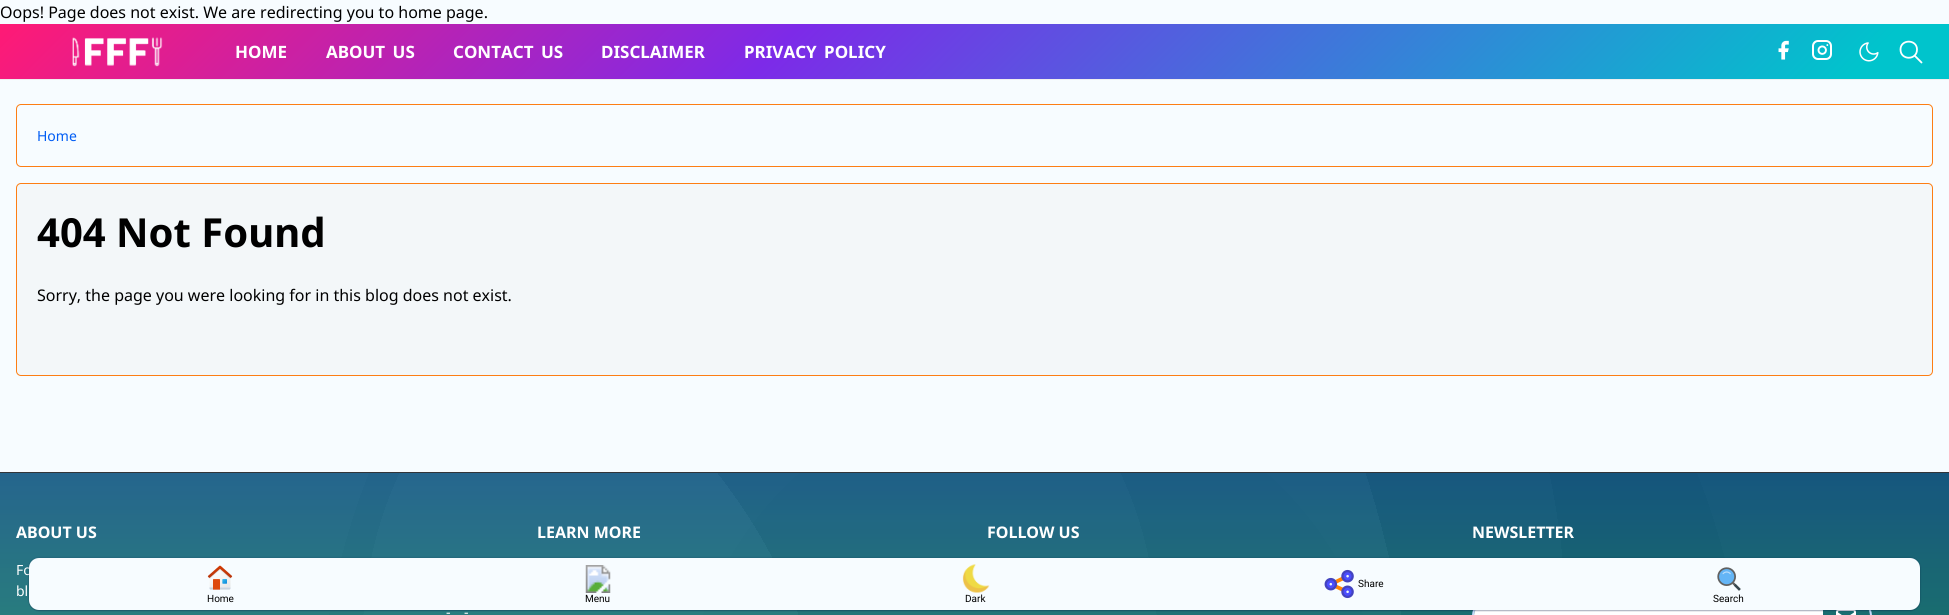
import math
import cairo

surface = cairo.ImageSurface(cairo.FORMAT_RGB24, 1949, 615)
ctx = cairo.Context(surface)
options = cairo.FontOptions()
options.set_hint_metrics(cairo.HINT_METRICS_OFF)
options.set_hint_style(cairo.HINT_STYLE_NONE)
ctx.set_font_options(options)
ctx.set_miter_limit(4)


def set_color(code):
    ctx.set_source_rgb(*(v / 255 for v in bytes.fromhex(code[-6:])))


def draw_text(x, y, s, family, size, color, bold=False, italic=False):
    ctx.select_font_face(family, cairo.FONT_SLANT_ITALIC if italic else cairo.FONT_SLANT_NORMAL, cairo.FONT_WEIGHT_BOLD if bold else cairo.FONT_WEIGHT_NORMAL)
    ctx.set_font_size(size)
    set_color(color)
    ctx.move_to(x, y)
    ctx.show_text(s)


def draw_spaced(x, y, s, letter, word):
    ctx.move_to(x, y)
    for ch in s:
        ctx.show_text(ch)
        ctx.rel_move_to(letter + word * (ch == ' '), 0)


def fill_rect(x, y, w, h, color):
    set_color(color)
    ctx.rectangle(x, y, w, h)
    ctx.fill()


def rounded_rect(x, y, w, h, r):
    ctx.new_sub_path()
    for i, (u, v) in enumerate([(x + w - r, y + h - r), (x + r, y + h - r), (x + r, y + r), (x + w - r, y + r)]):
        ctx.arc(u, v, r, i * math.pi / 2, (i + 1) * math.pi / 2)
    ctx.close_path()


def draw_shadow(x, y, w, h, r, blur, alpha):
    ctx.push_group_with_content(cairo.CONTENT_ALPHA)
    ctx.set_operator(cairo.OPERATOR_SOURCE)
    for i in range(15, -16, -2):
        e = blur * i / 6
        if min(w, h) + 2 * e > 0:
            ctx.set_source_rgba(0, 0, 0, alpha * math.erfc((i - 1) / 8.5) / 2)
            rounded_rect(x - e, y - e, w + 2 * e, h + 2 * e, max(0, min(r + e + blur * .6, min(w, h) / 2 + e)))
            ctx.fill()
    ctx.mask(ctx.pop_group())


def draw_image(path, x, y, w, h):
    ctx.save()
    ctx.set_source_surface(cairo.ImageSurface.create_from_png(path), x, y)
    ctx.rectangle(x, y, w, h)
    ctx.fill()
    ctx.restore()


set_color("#f7fcff")
ctx.paint()
draw_text(0, 18, "Oops! Page does not exist. We are redirecting you to home page.", "Noto Sans", 16, "#000000")
gradient = cairo.LinearGradient(473, -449, 1476, 553)
gradient.add_color_stop_rgba(0, 1, 0.102, 0.459, 1)
gradient.add_color_stop_rgba(0.4, 0.49, 0.165, 0.91, 1)
gradient.add_color_stop_rgba(0.95, 0, 0.769, 0.8, 1)
ctx.set_source(gradient)
ctx.rectangle(0, 24, 1949, 55)
ctx.fill()
fill_rect(0, 79, 1949, 1, "#efefef")
draw_image("assets/img1.png", 72, 37, 91, 30)
draw_text(235, 58, "HOME", "Noto Sans", 17, "#ffffff", bold=True)
draw_spaced(326, 58, "ABOUT US", 0, 3)
draw_spaced(453, 58, "CONTACT US", 0, 3)
draw_text(601, 58, "DISCLAIMER", "Noto Sans", 17, "#ffffff", bold=True)
draw_spaced(744, 58, "PRIVACY POLICY", 0, 3)
draw_image("assets/img2.png", 1778, 40, 11, 20)
draw_image("assets/img3.png", 1812, 40, 20, 20)
draw_image("assets/img4.png", 1859, 42, 20, 20)
ctx.new_path()
ctx.move_to(1921.5, 62.5)
ctx.line_to(1914.5, 55.5)
ctx.move_to(1917, 49.5)
ctx.curve_to(1917, 60.5, 1900.5, 60.5, 1900.5, 49.5)
ctx.curve_to(1900.5, 39, 1917, 39, 1917, 49.5)
ctx.close_path()
ctx.set_line_width(1.8)
ctx.set_line_cap(cairo.LINE_CAP_ROUND)
ctx.set_line_join(cairo.LINE_JOIN_ROUND)
ctx.stroke()
rounded_rect(16.5, 104.5, 1916, 62, 4.5)
set_color("#fd7e14")
ctx.set_line_width(1)
ctx.set_line_cap(cairo.LINE_CAP_BUTT)
ctx.set_line_join(cairo.LINE_JOIN_MITER)
ctx.stroke()
draw_text(37, 141, "Home", "Noto Sans", 14, "#005cf4")
set_color("#f3f7f9")
rounded_rect(16.5, 183.5, 1916, 192, 4.5)
ctx.fill_preserve()
set_color("#fd7e14")
ctx.stroke()
draw_text(37, 247, "404 Not Found", "Noto Sans", 40, "#000000", bold=True)
draw_text(37, 301, "Sorry, the page you were looking for in this blog does not exist.", "Noto Sans", 16, "#000000")
gradient = cairo.LinearGradient(975, 473, 975, 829)
gradient.add_color_stop_rgba(0, 0.008, 0.329, 0.529, 1)
gradient.add_color_stop_rgba(1, 0.059, 0.616, 0.345, 1)
ctx.set_source(gradient)
ctx.rectangle(0, 473, 1949, 142)
ctx.fill()
gradient = cairo.RadialGradient(273, 822, 0, 273, 822, 1712)
gradient.add_color_stop_rgba(0, 0.722, 0.722, 0.722, 0.08)
gradient.add_color_stop_rgba(0.33, 0.722, 0.722, 0.722, 0.08)
gradient.add_color_stop_rgba(0.33, 0.376, 0.376, 0.376, 0.08)
gradient.add_color_stop_rgba(0.67, 0.376, 0.376, 0.376, 0.08)
gradient.add_color_stop_rgba(0.67, 0.027, 0.027, 0.027, 0.08)
gradient.add_color_stop_rgba(1, 0.027, 0.027, 0.027, 0.08)
ctx.set_source(gradient)
ctx.rectangle(0, 473, 1949, 142)
ctx.fill()
gradient = cairo.RadialGradient(1033, 736, 0, 1033, 736, 1066)
gradient.add_color_stop_rgba(0, 0.714, 0.714, 0.714, 0.08)
gradient.add_color_stop_rgba(0.33, 0.714, 0.714, 0.714, 0.08)
gradient.add_color_stop_rgba(0.33, 0.792, 0.792, 0.792, 0.08)
gradient.add_color_stop_rgba(0.67, 0.792, 0.792, 0.792, 0.08)
gradient.add_color_stop_rgba(0.67, 0.867, 0.867, 0.867, 0.08)
gradient.add_color_stop_rgba(1, 0.867, 0.867, 0.867, 0.08)
ctx.set_source(gradient)
ctx.rectangle(0, 473, 1949, 142)
ctx.fill()
gradient = cairo.RadialGradient(760, 640, 0, 760, 640, 1204)
gradient.add_color_stop_rgba(0, 0.42, 0.42, 0.42, 0.08)
gradient.add_color_stop_rgba(0.33, 0.42, 0.42, 0.42, 0.08)
gradient.add_color_stop_rgba(0.33, 0.282, 0.282, 0.282, 0.08)
gradient.add_color_stop_rgba(0.67, 0.282, 0.282, 0.282, 0.08)
gradient.add_color_stop_rgba(0.67, 0.141, 0.141, 0.141, 0.08)
gradient.add_color_stop_rgba(1, 0.141, 0.141, 0.141, 0.08)
ctx.set_source(gradient)
ctx.rectangle(0, 473, 1949, 142)
ctx.fill()
fill_rect(0, 472, 1949, 1, "#323539")
draw_text(16, 538, "ABOUT US", "Noto Sans", 16, "#ffffff", bold=True)
draw_text(16, 575, "Fo", "Noto Sans", 14, "#ffffff")
draw_text(16, 596, "bl", "Noto Sans", 14, "#ffffff")
draw_text(446, 617, "-", "Noto Sans", 14, "#ffffff")
draw_text(464, 617, "-", "Noto Sans", 14, "#ffffff")
draw_text(537, 538, "LEARN MORE", "Noto Sans", 16, "#ffffff", bold=True)
draw_text(987, 538, "FOLLOW US", "Noto Sans", 16, "#ffffff", bold=True)
draw_text(1472, 538, "NEWSLETTER", "Noto Sans", 16, "#ffffff", bold=True)
rounded_rect(1473, 597, 398, 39, 19.5)
set_color("#c6dafc")
ctx.set_line_width(2)
ctx.stroke()
set_color("#ffffff")
ctx.new_path()
ctx.move_to(1492.5, 598)
ctx.line_to(1823, 598)
ctx.line_to(1823, 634)
ctx.line_to(1492.5, 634)
ctx.curve_to(1482.5, 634, 1474, 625.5, 1474, 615.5)
ctx.line_to(1474, 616.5)
ctx.curve_to(1474, 606.5, 1482.5, 598, 1492.5, 598)
ctx.close_path()
ctx.fill()
draw_image("assets/img5.png", 1836, 610, 20, 5)
set_color("#091e42")
draw_shadow(28, 557, 1893, 54, 11, 0.5, 0.13)
draw_shadow(29, 559, 1891, 52, 10, 0.5, 0.25)
set_color("#f7fcff")
rounded_rect(29, 558, 1891, 52, 10)
ctx.fill()
draw_image("assets/img6.png", 1324, 569, 30, 30)
draw_text(1358, 587, "Share", "Roboto", 10, "#000000")
draw_image("assets/img7.png", 207, 565, 26, 25)
draw_text(207, 602, "Home", "Roboto", 10, "#000000")
draw_image("assets/img8.png", 585, 565, 26, 28)
draw_text(585, 602, "Menu", "Roboto", 10, "#000000")
draw_image("assets/img9.png", 962, 564, 28, 29)
draw_text(965, 602, "Dark", "Roboto", 10, "#000000")
draw_image("assets/img10.png", 1717, 567, 24, 24)
draw_text(1713, 602, "Search", "Roboto", 10, "#000000")
surface.write_to_png("output.png")
